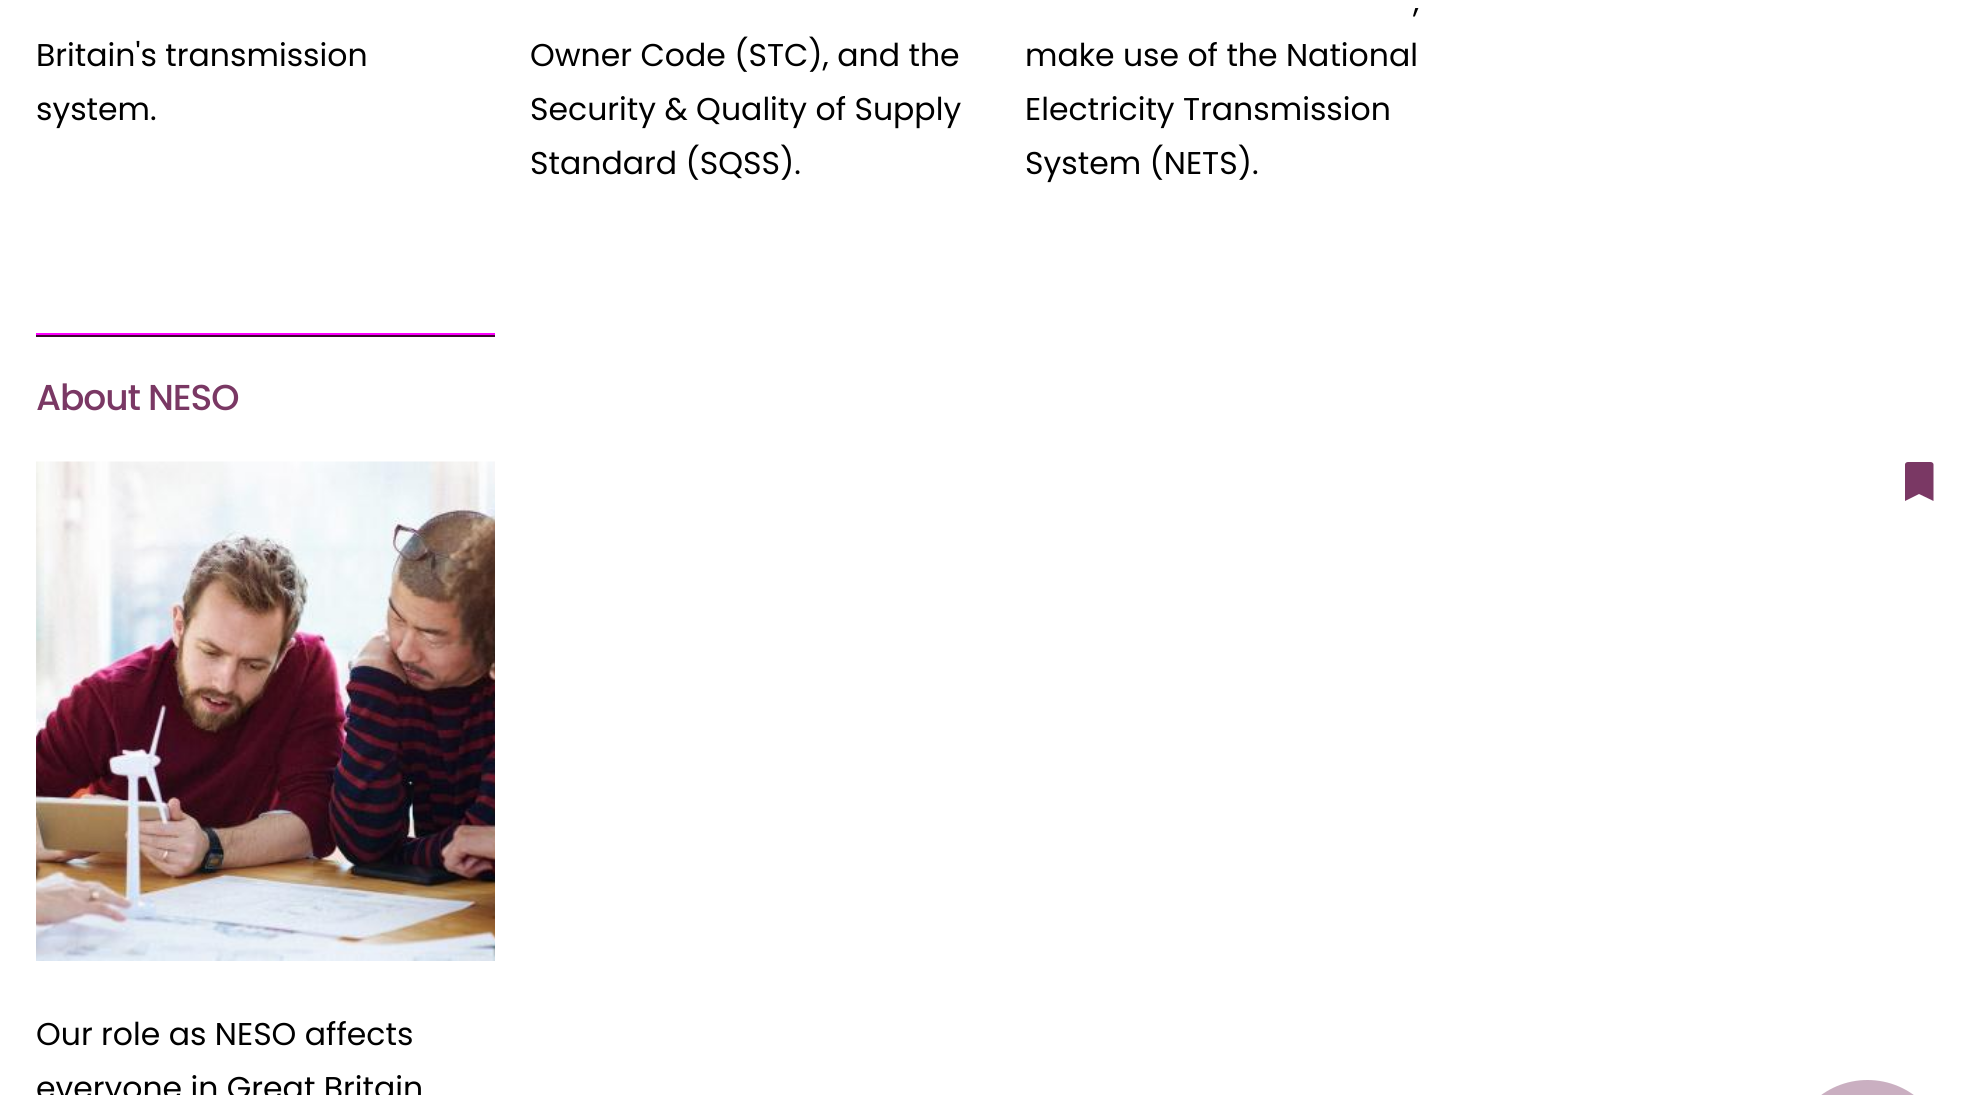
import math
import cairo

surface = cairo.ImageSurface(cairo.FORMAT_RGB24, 1981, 1095)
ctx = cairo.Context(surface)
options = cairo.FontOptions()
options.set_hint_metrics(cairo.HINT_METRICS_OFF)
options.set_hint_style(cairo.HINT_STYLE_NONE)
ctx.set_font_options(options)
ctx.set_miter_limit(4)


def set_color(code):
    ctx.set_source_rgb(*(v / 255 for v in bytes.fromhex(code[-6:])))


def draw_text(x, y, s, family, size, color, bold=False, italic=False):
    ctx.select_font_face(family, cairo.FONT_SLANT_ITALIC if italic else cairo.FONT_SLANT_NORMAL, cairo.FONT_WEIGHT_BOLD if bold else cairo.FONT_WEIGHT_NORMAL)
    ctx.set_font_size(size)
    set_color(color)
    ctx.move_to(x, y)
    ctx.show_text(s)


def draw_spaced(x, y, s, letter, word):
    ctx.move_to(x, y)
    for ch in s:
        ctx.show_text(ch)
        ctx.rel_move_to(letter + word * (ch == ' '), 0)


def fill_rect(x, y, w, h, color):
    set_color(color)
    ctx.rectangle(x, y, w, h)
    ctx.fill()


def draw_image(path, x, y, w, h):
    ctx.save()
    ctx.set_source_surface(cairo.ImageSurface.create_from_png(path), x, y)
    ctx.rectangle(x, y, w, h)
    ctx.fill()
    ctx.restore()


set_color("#ffffff")
ctx.paint()
draw_text(36, 66, "Britain's transmission", "Poppins", 31.5, "#000000")
draw_text(36, 120, "system.", "Poppins", 31.5, "#000000")
draw_text(530, 66, "Owner Code (STC), and the", "Poppins", 31.5, "#000000")
draw_text(530, 120, "Security & Quality of Supply", "Poppins", 31.5, "#000000")
draw_text(530, 174, "Standard (SQSS).", "Poppins", 31.5, "#000000")
draw_text(1413, 12, ",", "Poppins", 31.5, "#000000")
draw_text(1025, 66, "make use of the National", "Poppins", 31.5, "#000000")
draw_text(1025, 120, "Electricity Transmission", "Poppins", 31.5, "#000000")
draw_text(1025, 174, "System (NETS).", "Poppins", 31.5, "#000000")
fill_rect(36, 333, 459, 2, "#ff00ff")
fill_rect(36, 335, 459, 2, "#3f0731")
ctx.select_font_face("Poppins Medium")
ctx.set_font_size(36)
set_color("#7a3864")
draw_spaced(36, 410, "About NESO", -1.1, 0)
draw_image("assets/img1.png", 36, 461, 459, 500)
draw_text(36, 1045, "Our role as NESO affects", "Poppins", 31.5, "#000000")
draw_text(36, 1099, "everyone in Great Britain", "Poppins", 31.5, "#000000")
set_color("#7a3864")
ctx.new_path()
ctx.move_to(1930.5, 462)
ctx.line_to(1908, 462)
ctx.curve_to(1906.5, 462, 1905, 463, 1905, 464.5)
ctx.line_to(1905, 501)
ctx.line_to(1919, 494)
ctx.line_to(1933.5, 501)
ctx.line_to(1933.5, 464.5)
ctx.curve_to(1933.5, 463, 1932, 462, 1930.5, 462)
ctx.close_path()
ctx.fill()
draw_image("assets/img2.png", 1821, 1080, 93, 15)
surface.write_to_png("output.png")
